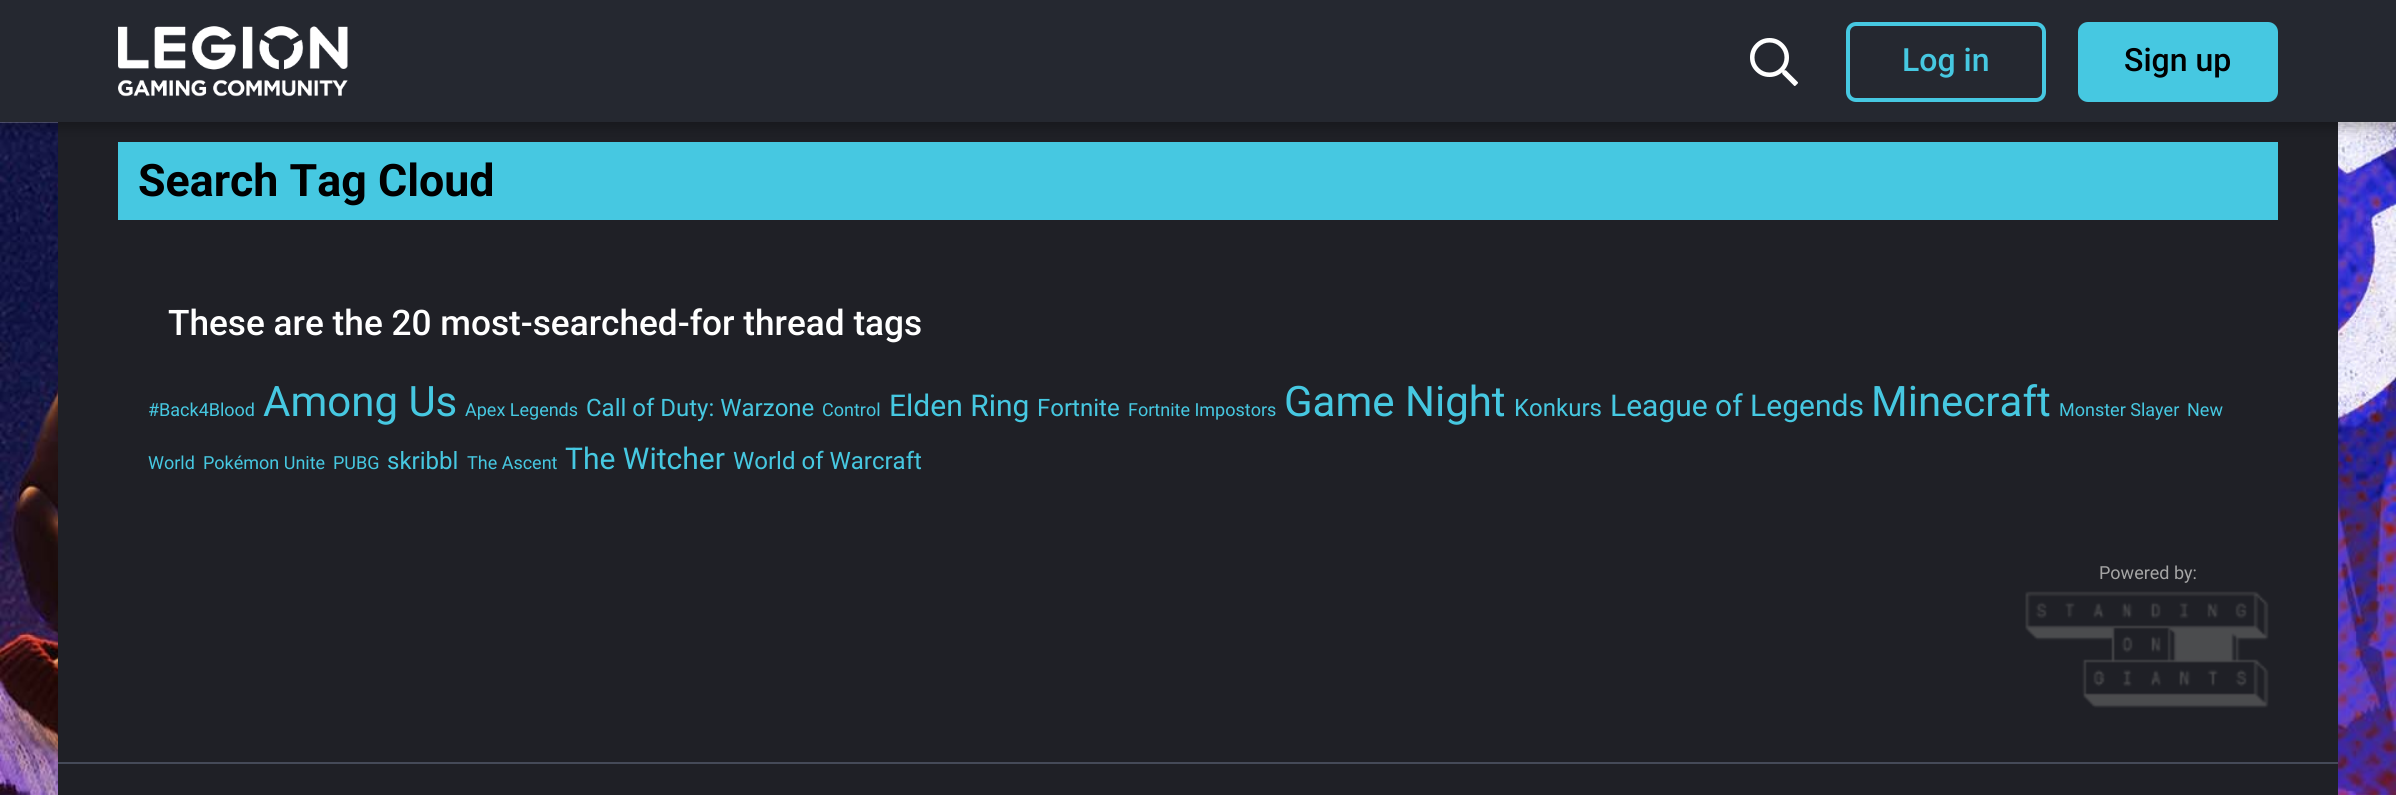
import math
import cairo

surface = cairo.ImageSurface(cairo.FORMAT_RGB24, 2396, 795)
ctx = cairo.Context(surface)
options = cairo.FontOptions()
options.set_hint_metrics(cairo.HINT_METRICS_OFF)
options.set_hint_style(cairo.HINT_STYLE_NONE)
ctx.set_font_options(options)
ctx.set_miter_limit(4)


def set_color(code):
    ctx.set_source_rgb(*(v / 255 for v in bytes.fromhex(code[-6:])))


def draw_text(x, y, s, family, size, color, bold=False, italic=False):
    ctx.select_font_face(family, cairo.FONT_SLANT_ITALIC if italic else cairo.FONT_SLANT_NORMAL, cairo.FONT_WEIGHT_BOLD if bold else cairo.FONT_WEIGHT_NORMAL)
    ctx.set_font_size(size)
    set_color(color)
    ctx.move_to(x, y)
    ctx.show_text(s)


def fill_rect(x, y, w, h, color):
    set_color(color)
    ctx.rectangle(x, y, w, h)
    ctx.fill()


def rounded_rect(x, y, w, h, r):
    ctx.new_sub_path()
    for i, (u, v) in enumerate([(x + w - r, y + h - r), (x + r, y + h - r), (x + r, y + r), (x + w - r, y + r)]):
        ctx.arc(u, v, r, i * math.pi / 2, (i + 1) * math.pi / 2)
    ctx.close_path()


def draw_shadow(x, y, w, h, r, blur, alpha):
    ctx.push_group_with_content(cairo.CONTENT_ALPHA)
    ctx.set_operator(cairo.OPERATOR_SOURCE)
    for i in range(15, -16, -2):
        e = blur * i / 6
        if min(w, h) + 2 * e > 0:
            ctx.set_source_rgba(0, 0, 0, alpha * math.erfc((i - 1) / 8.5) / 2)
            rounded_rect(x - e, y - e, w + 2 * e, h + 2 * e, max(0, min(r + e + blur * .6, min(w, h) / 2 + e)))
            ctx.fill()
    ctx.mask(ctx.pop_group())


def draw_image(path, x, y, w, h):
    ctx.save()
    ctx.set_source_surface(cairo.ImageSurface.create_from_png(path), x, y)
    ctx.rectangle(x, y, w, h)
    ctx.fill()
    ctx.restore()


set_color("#ffffff")
ctx.paint()
draw_image("assets/img1.png", 0, 122, 2396, 673)
fill_rect(58, 122, 2280, 673, "#1f2026")
fill_rect(118, 142, 2160, 78, "#46c8e1")
set_color("#000000")
draw_shadow(0, 6, 2396, 122, 0, 6, 0.25)
fill_rect(0, 0, 2396, 122, "#252830")
draw_image("assets/img2.png", 118, 26, 230, 71)
draw_image("assets/img3.png", 1750, 38, 48, 48)
rounded_rect(1848, 24, 196, 76, 8)
set_color("#46c8e1")
ctx.set_line_width(4)
ctx.stroke()
draw_text(1902, 71, "Log in", "Roboto Medium", 32, "#46c8e1")
rounded_rect(2080, 24, 196, 76, 8)
ctx.fill_preserve()
ctx.stroke()
draw_text(2124, 71, "Sign up", "Roboto Medium", 32, "#000000")
draw_text(138, 196, "Search Tag Cloud", "Roboto", 44.75, "#000000", bold=True)
draw_text(168, 335, "These are the 20 most-searched-for thread tags", "Roboto Medium", 35.2, "#ffffff")
draw_text(148, 416, "#Back4Blood", "Roboto", 18, "#46c8e1")
draw_text(263, 416, "Among Us", "Roboto", 42, "#46c8e1")
draw_text(465, 416, "Apex Legends", "Roboto", 18, "#46c8e1")
draw_text(586, 416, "Call of Duty: Warzone", "Roboto", 24, "#46c8e1")
draw_text(822, 416, "Control", "Roboto", 18, "#46c8e1")
draw_text(889, 416, "Elden Ring", "Roboto", 30, "#46c8e1")
draw_text(1037, 416, "Fortnite", "Roboto", 24, "#46c8e1")
draw_text(1128, 416, "Fortnite Impostors", "Roboto", 18, "#46c8e1")
draw_text(1284, 416, "Game Night", "Roboto", 42, "#46c8e1")
draw_text(1514, 416, "Konkurs", "Roboto", 24, "#46c8e1")
draw_text(1610, 416, "League of Legends", "Roboto", 30, "#46c8e1")
draw_text(1871, 416, "Minecraft", "Roboto", 42, "#46c8e1")
draw_text(2059, 416, "Monster Slayer", "Roboto", 18, "#46c8e1")
draw_text(2187, 416, "New", "Roboto", 18, "#46c8e1")
draw_text(148, 469, "World", "Roboto", 18, "#46c8e1")
draw_text(203, 469, "Pokémon Unite", "Roboto", 18, "#46c8e1")
draw_text(333, 469, "PUBG", "Roboto", 18, "#46c8e1")
draw_text(387, 469, "skribbl", "Roboto", 24, "#46c8e1")
draw_text(467, 469, "The Ascent", "Roboto", 18, "#46c8e1")
draw_text(565, 469, "The Witcher", "Roboto", 30, "#46c8e1")
draw_text(733, 469, "World of Warcraft", "Roboto", 24, "#46c8e1")
draw_text(2099, 579, "Powered by:", "Roboto", 18, "#a5a5a5")
draw_image("assets/img4.png", 2025, 591, 244, 117)
fill_rect(58, 762, 2280, 2, "#454a58")
surface.write_to_png("output.png")
